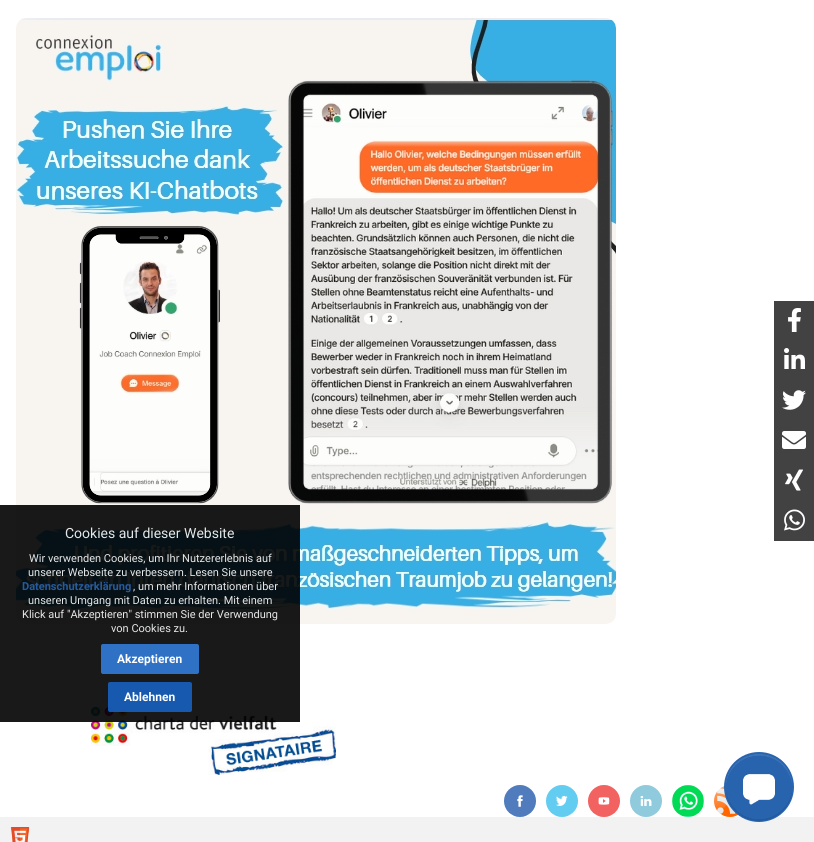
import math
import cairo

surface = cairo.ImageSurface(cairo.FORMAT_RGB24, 814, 842)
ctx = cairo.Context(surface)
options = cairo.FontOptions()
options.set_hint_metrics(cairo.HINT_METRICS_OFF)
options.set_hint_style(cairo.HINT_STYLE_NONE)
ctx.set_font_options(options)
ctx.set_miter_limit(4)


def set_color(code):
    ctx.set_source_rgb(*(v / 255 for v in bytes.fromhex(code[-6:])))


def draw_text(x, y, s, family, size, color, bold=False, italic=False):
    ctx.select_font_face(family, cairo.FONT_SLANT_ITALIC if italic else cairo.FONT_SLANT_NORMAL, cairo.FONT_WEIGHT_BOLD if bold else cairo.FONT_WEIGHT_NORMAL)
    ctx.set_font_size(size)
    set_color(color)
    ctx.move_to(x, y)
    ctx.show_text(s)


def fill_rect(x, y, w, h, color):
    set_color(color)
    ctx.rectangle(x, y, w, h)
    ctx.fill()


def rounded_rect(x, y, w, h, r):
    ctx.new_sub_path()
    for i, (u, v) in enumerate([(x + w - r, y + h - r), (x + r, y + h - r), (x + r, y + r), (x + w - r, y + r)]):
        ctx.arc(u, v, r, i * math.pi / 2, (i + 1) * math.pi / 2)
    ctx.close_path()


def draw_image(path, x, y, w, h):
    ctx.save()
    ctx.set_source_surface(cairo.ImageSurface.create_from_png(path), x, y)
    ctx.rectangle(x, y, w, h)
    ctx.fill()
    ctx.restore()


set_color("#ffffff")
ctx.paint()
fill_rect(774, 301, 40, 240, "#424242")
draw_image("assets/img1.png", 788, 308, 13, 24)
draw_image("assets/img2.png", 784, 348, 21, 21)
draw_image("assets/img3.png", 782, 390, 24, 20)
draw_image("assets/img4.png", 782, 431, 24, 18)
draw_image("assets/img5.png", 785, 469, 18, 22)
draw_image("assets/img6.png", 784, 509, 21, 22)
draw_image("assets/img7.png", 16, 18, 600, 606)
draw_image("assets/img8.png", 91, 707, 245, 68)
ctx.set_source_rgba(0, 0, 0, 0.9)
ctx.rectangle(0, 505, 300, 217)
ctx.fill()
draw_text(65, 538, "Cookies auf dieser Website", "Roboto", 14, "#e6e7e8")
draw_text(29, 562, "Wir verwenden Cookies, um Ihr Nutzererlebnis auf", "Roboto", 11, "#e6e7e8")
draw_text(28, 576, "unserer Webseite zu verbessern. Lesen Sie unsere", "Roboto", 11, "#e6e7e8")
draw_text(22, 590, "Datenschutzerklärung", "Roboto", 11, "#255ca0", bold=True)
draw_text(133, 590, ", um mehr Informationen über", "Roboto", 11, "#e6e7e8")
draw_text(28, 604, "unseren Umgang mit Daten zu erhalten. Mit einem", "Roboto", 11, "#e6e7e8")
draw_text(22, 618, "Klick auf \"Akzeptieren\" stimmen Sie der Verwendung", "Roboto", 11, "#e6e7e8")
draw_text(111, 632, "von Cookies zu.", "Roboto", 11, "#e6e7e8")
set_color("#2f71c5")
rounded_rect(101, 644, 98, 30, 2)
ctx.fill()
draw_text(117, 663, "Akzeptieren", "Roboto", 12, "#ffffff", bold=True)
ctx.set_source_rgba(0.094, 0.38, 0.749, 0.9)
rounded_rect(108, 682, 84, 30, 2)
ctx.fill()
draw_text(124, 701, "Ablehnen", "Roboto", 12, "#ffffff", bold=True)
draw_image("assets/img9.png", 504, 785, 32, 32)
draw_image("assets/img10.png", 546, 785, 32, 32)
draw_image("assets/img11.png", 588, 785, 32, 32)
draw_image("assets/img12.png", 630, 785, 32, 32)
draw_image("assets/img13.png", 672, 785, 32, 32)
draw_image("assets/img14.png", 714, 785, 24, 32)
fill_rect(0, 817, 814, 25, "#f2f2f2")
draw_image("assets/img15.png", 10, 827, 20, 15)
set_color("#2864af")
ctx.arc(759, 787, 35, 0, 2 * math.pi)
ctx.fill()
draw_image("assets/img16.png", 726, 754, 66, 67)
surface.write_to_png("output.png")
